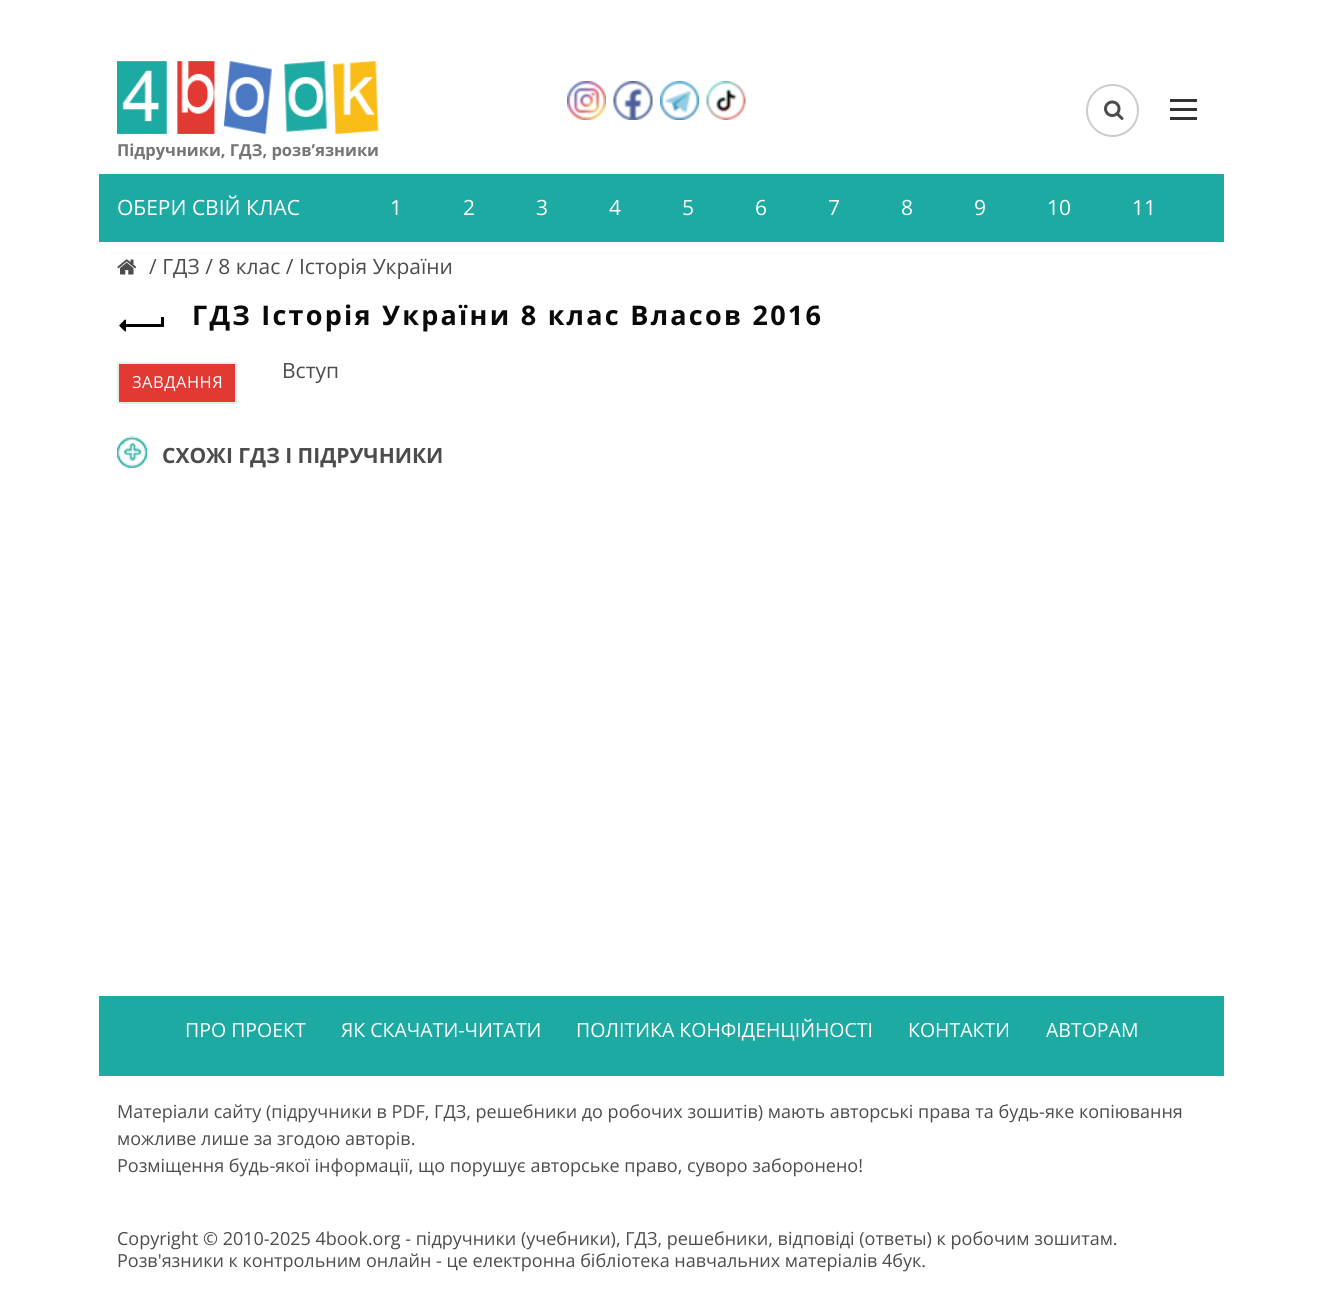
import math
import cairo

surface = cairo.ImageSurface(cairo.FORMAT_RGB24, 1322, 1294)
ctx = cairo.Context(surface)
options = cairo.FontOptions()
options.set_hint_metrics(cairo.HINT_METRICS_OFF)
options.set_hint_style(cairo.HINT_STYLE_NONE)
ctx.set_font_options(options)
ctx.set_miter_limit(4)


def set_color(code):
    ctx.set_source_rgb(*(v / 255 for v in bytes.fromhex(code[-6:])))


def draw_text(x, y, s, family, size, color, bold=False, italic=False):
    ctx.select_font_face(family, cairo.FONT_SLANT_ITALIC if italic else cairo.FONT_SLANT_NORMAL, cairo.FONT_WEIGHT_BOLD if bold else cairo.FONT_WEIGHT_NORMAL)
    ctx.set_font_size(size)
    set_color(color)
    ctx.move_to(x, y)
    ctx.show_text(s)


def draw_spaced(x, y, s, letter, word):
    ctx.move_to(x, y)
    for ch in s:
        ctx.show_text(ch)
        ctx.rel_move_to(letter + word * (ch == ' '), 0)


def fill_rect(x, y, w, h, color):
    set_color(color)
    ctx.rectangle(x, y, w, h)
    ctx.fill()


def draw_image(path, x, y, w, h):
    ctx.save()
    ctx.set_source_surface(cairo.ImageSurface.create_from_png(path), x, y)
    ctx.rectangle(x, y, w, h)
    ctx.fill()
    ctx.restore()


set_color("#ffffff")
ctx.paint()
draw_image("assets/img1.png", 567, 81, 39, 39)
draw_image("assets/img2.png", 613, 81, 40, 39)
draw_image("assets/img3.png", 660, 81, 39, 39)
draw_image("assets/img4.png", 706, 81, 40, 39)
draw_image("assets/img5.png", 1104, 100, 20, 20)
ctx.arc(1112.5, 110.5, 25.5, 0, 2 * math.pi)
set_color("#cccccc")
ctx.stroke()
fill_rect(1170, 108, 27, 3, "#333333")
fill_rect(1170, 99, 27, 3, "#333333")
fill_rect(1170, 117, 27, 3, "#333333")
draw_image("assets/img6.png", 117, 61, 262, 73)
draw_text(117, 156, "Підручники, ГДЗ, розв’язники", "Open Sans", 16.5, "#767474", bold=True)
fill_rect(99, 174, 1125, 68, "#1daaa3")
draw_text(117, 215, "ОБЕРИ СВІЙ КЛАС", "Open Sans", 21, "#ffffff")
draw_text(390, 215, "1", "Open Sans", 21, "#ffffff")
draw_text(463, 215, "2", "Open Sans", 21, "#ffffff")
draw_text(536, 215, "3", "Open Sans", 21, "#ffffff")
draw_text(609, 215, "4", "Open Sans", 21, "#ffffff")
draw_text(682, 215, "5", "Open Sans", 21, "#ffffff")
draw_text(755, 215, "6", "Open Sans", 21, "#ffffff")
draw_text(828, 215, "7", "Open Sans", 21, "#ffffff")
draw_text(901, 215, "8", "Open Sans", 21, "#ffffff")
draw_text(974, 215, "9", "Open Sans", 21, "#ffffff")
draw_text(1047, 215, "10", "Open Sans", 21, "#ffffff")
draw_text(1132, 215, "11", "Open Sans", 21, "#ffffff")
draw_image("assets/img7.png", 117, 259, 20, 16)
draw_text(149, 274, "/ ГДЗ / 8 клас / Історія України", "Open Sans", 21, "#4c4c4c")
fill_rect(125, 324, 37, 3, "#000000")
draw_image("assets/img8.png", 119, 319, 7, 13)
fill_rect(161, 317, 3, 10, "#000000")
ctx.select_font_face("Open Sans", cairo.FONT_SLANT_NORMAL, cairo.FONT_WEIGHT_BOLD)
ctx.set_font_size(27)
set_color("#0a0a0a")
draw_spaced(192, 325, "ГДЗ Історія України 8 клас Власов 2016", 2.25, 0)
set_color("#e23933")
ctx.rectangle(118, 363, 118, 40)
ctx.fill_preserve()
set_color("#ececec")
ctx.stroke()
ctx.select_font_face("Open Sans")
ctx.set_font_size(16.5)
set_color("#ffffff")
draw_spaced(132, 388, "ЗАВДАННЯ", 0.5, 0)
draw_text(282, 378, "Вступ", "Open Sans", 21, "#4c4c4c")
draw_image("assets/img9.png", 117, 436, 30, 32)
draw_text(162, 463, "СХОЖІ ГДЗ І ПІДРУЧНИКИ", "Open Sans", 21, "#4c4c4c", bold=True)
fill_rect(99, 996, 1125, 80, "#1daaa3")
draw_text(185, 1037, "ПРО ПРОЕКТ", "Open Sans", 19.5, "#ffffff")
draw_text(341, 1037, "ЯК СКАЧАТИ-ЧИТАТИ", "Open Sans", 19.5, "#ffffff")
draw_text(576, 1037, "ПОЛІТИКА КОНФІДЕНЦІЙНОСТІ", "Open Sans", 19.5, "#ffffff")
draw_text(908, 1037, "КОНТАКТИ", "Open Sans", 19.5, "#ffffff")
draw_text(1046, 1037, "АВТОРАМ", "Open Sans", 19.5, "#ffffff")
draw_text(117, 1118, "Матеріали сайту (підручники в PDF, ГДЗ, решебники до робочих зошитів) мають авторські права та будь-яке копіювання", "Open Sans", 18, "#4c4c4c")
draw_text(117, 1145, "можливе лише за згодою авторів.", "Open Sans", 18, "#4c4c4c")
draw_text(117, 1172, "Розміщення будь-якої інформації, що порушує авторське право, суворо заборонено!", "Open Sans", 18, "#4c4c4c")
draw_text(117, 1245, "Copyright © 2010-2025 4book.org - підручники (учебники), ГДЗ, решебники, відповіді (ответы) к робочим зошитам.", "Open Sans", 18, "#4c4c4c")
draw_text(117, 1267, "Розв'язники к контрольним онлайн - це електронна бібліотека навчальних матеріалів 4бук.", "Open Sans", 18, "#4c4c4c")
surface.write_to_png("output.png")
